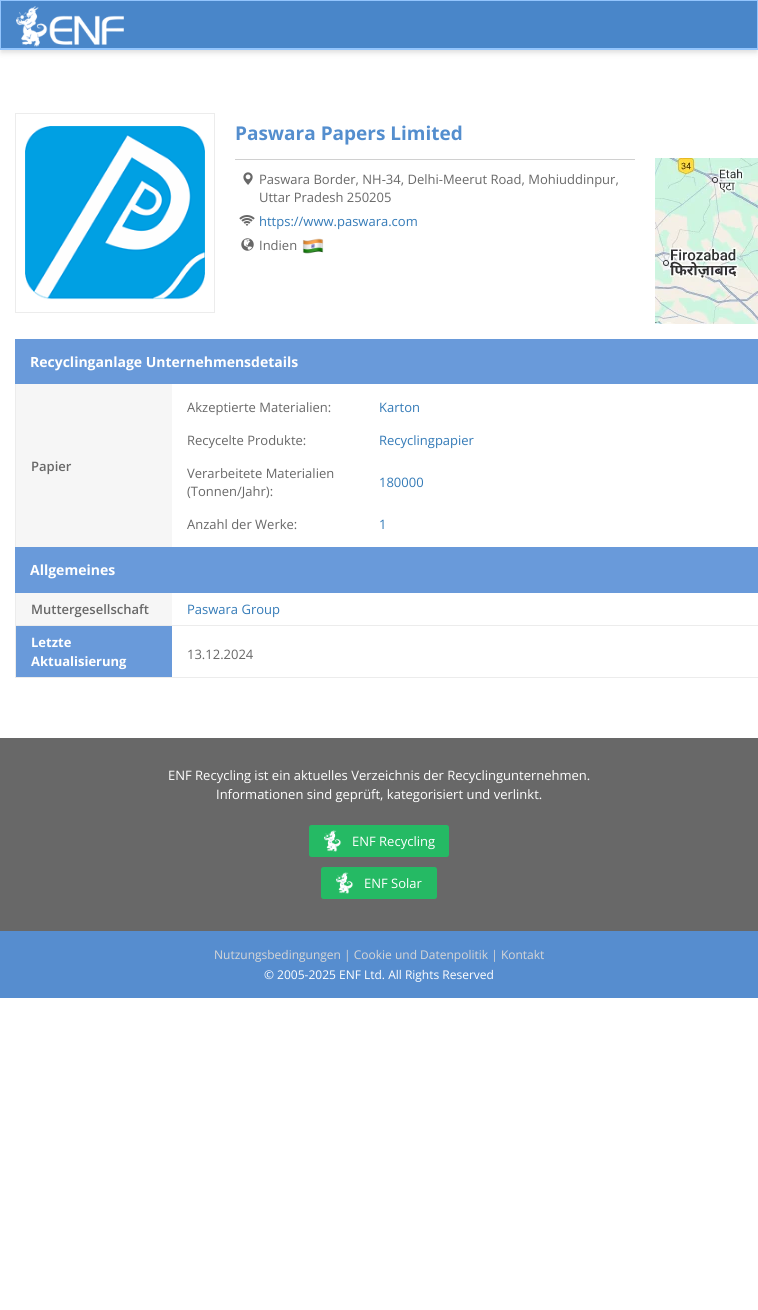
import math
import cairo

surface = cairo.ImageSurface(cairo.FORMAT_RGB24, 758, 1310)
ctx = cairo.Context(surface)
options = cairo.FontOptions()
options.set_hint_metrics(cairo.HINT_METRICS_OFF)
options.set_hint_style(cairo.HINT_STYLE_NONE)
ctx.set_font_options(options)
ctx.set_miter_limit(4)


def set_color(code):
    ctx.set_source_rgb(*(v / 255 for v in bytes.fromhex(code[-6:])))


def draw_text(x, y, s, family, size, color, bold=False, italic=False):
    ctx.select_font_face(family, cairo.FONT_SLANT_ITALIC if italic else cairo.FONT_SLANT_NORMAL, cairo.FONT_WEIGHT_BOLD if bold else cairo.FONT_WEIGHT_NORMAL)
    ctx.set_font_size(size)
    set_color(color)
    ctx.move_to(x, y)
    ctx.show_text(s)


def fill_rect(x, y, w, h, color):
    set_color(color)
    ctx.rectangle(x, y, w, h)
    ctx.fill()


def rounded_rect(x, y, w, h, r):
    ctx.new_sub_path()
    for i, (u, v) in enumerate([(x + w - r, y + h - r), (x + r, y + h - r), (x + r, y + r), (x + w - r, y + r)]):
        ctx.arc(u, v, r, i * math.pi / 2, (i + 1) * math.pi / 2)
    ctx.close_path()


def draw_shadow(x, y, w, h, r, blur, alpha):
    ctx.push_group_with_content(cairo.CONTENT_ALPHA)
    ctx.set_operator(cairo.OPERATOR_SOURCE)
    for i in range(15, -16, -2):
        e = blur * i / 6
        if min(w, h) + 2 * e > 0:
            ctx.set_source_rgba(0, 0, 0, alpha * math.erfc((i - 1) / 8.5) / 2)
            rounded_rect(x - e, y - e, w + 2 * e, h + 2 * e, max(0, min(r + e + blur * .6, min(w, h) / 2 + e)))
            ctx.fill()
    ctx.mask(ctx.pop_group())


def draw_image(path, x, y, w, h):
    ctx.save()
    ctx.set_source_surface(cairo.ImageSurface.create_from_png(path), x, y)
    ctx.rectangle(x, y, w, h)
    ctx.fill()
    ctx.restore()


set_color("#ffffff")
ctx.paint()
set_color("#000000")
draw_shadow(1, 3, 756, 48, 0, 2, 0.06)
draw_shadow(1, 5, 756, 48, 0, 3, 0.1)
fill_rect(1, 1, 756, 47, "#4986c9")
fill_rect(0, 0, 758, 1, "#93c5fd")
fill_rect(757, 0, 1, 50, "#93c5fd")
fill_rect(0, 48, 758, 2, "#93c5fd")
fill_rect(0, 0, 1, 50, "#93c5fd")
draw_image("assets/img1.png", 16, 6, 108, 41)
ctx.rectangle(15.5, 113.5, 199, 199)
set_color("#ececec")
ctx.set_line_width(1)
ctx.stroke()
draw_image("assets/img2.png", 25, 126, 180, 174)
draw_text(235, 140, "Paswara Papers Limited", "Open Sans", 19, "#548ece", bold=True)
fill_rect(235, 159, 400, 1, "#d0d0d0")
draw_image("assets/img3.png", 243, 172, 10, 13)
draw_text(259, 184, "Paswara Border, NH-34, Delhi-Meerut Road, Mohiuddinpur,", "Open Sans", 13, "#686868")
draw_text(259, 202, "Uttar Pradesh 250205", "Open Sans", 13, "#686868")
draw_image("assets/img4.png", 239, 215, 16, 11)
draw_text(259, 226, "https://www.paswara.com", "Open Sans", 13, "#337ab7")
draw_image("assets/img5.png", 241, 238, 13, 13)
draw_text(259, 250, "Indien", "Open Sans", 13, "#686868")
draw_image("assets/img6.png", 302, 238, 22, 16)
draw_image("assets/img7.png", 655, 158, 103, 166)
fill_rect(15, 625, 743, 1, "#ececec")
fill_rect(15, 339, 743, 45, "#699ada")
draw_text(30, 367, "Recyclinganlage Unternehmensdetails", "Open Sans", 14, "#ffffff", bold=True)
fill_rect(15, 384, 1, 163, "#ececec")
fill_rect(16, 384, 156, 163, "#f6f6f6")
draw_text(31, 471, "Papier", "Open Sans SemiBold", 13, "#686868")
draw_text(187, 412, "Akzeptierte Materialien:", "Open Sans", 13, "#686868")
draw_text(379, 412, "Karton", "Open Sans", 13, "#337ab7")
draw_text(187, 445, "Recycelte Produkte:", "Open Sans", 13, "#686868")
draw_text(379, 445, "Recyclingpapier", "Open Sans", 13, "#337ab7")
draw_text(187, 478, "Verarbeitete Materialien", "Open Sans", 13, "#686868")
draw_text(187, 496, "(Tonnen/Jahr):", "Open Sans", 13, "#686868")
draw_text(379, 487, "180000", "Open Sans", 13, "#337ab7")
draw_text(187, 529, "Anzahl der Werke:", "Open Sans", 13, "#686868")
draw_text(379, 529, "1", "Open Sans", 13, "#337ab7")
fill_rect(15, 547, 743, 46, "#699ada")
draw_text(30, 575, "Allgemeines", "Open Sans", 14, "#ffffff", bold=True)
fill_rect(15, 593, 1, 32, "#ececec")
fill_rect(16, 593, 156, 32, "#f6f6f6")
draw_text(31, 614, "Muttergesellschaft", "Open Sans SemiBold", 13, "#686868")
draw_text(187, 614, "Paswara Group", "Open Sans", 13, "#337ab7")
fill_rect(15, 677, 743, 1, "#ececec")
fill_rect(15, 626, 1, 51, "#ececec")
fill_rect(16, 626, 156, 51, "#699ada")
draw_text(31, 647, "Letzte", "Open Sans", 13, "#ffffff", bold=True)
draw_text(31, 666, "Aktualisierung", "Open Sans", 13, "#ffffff", bold=True)
draw_text(187, 659, "13.12.2024", "Open Sans", 13, "#686868")
fill_rect(0, 738, 758, 193, "#686868")
draw_text(168, 780, "ENF Recycling ist ein aktuelles Verzeichnis der Recyclingunternehmen.", "Open Sans", 13, "#ffffff")
draw_text(216, 799, "Informationen sind geprüft, kategorisiert und verlinkt.", "Open Sans", 13, "#ffffff")
set_color("#25ba64")
rounded_rect(309, 825, 140, 32, 2.5)
ctx.fill()
draw_image("assets/img8.png", 324, 830, 18, 22)
draw_text(352, 846, "ENF Recycling", "Open Sans", 13, "#ffffff")
set_color("#25ba64")
rounded_rect(321, 867, 116, 32, 2.5)
ctx.fill()
draw_image("assets/img8.png", 336, 872, 18, 22)
draw_text(364, 888, "ENF Solar", "Open Sans", 13, "#ffffff")
fill_rect(0, 931, 758, 67, "#568dcf")
draw_text(214, 959, "Nutzungsbedingungen | Cookie und Datenpolitik | Kontakt", "Open Sans", 12, "#d6d6d6")
draw_text(264, 979, "© 2005-2025 ENF Ltd. All Rights Reserved", "Open Sans", 12, "#ffffff")
surface.write_to_png("output.png")
